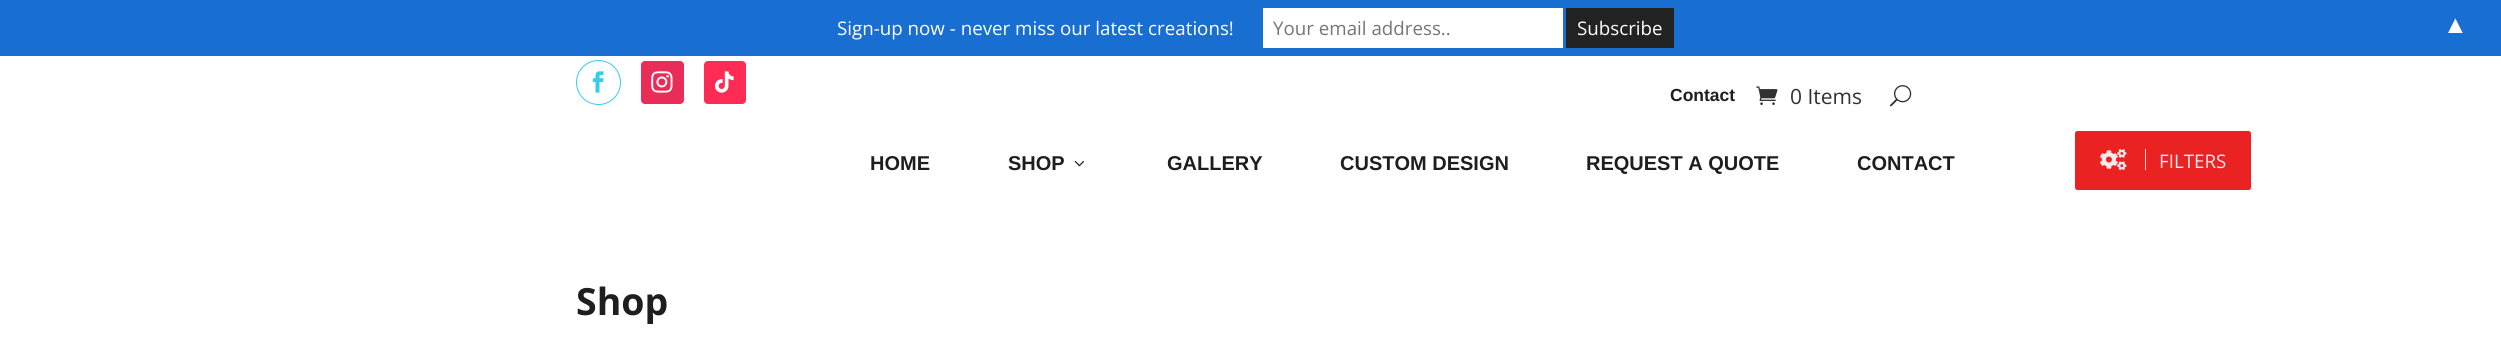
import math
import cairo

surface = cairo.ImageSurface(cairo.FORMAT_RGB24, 2501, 340)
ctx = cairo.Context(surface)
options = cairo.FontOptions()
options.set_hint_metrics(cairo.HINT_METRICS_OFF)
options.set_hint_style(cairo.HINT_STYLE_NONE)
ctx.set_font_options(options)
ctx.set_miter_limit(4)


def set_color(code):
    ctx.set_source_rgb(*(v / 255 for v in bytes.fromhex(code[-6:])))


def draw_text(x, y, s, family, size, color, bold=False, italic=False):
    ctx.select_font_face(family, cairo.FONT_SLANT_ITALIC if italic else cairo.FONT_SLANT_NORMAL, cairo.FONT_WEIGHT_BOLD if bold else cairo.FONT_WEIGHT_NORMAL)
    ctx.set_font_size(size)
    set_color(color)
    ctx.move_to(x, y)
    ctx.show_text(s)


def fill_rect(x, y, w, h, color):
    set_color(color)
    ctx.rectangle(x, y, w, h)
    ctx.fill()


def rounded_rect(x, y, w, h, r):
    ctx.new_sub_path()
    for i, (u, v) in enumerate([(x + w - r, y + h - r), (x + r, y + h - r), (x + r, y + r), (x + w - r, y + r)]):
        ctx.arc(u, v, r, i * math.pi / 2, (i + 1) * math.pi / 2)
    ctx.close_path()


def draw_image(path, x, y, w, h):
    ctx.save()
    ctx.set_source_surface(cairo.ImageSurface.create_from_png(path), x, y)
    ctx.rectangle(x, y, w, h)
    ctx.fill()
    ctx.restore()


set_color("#ffffff")
ctx.paint()
fill_rect(0, 0, 2501, 56, "#196ed1")
draw_text(837, 35, "Sign-up now - never miss our latest creations!", "Open Sans", 18.75, "#ffffff")
fill_rect(1263, 8, 300, 40, "#ffffff")
draw_text(1273, 35, "Your email address..", "Open Sans", 18.75, "#757575")
fill_rect(1566, 8, 108, 40, "#222222")
draw_text(1577, 35, "Subscribe", "Open Sans", 18.75, "#ffffff")
draw_text(2443, 33, "▲", "Liberation Sans", 25, "#ffffff")
ctx.new_path()
ctx.arc(598.5, 82.5, 22, 0, 2 * math.pi)
set_color("#35cceb")
ctx.set_line_width(1)
ctx.stroke()
draw_image("assets/img1.png", 592, 71, 12, 22)
set_color("#ea2c59")
rounded_rect(641, 61, 43, 43, 4)
ctx.fill()
draw_image("assets/img2.png", 651, 71, 22, 22)
set_color("#fe2c55")
rounded_rect(704, 61, 42, 43, 4)
ctx.fill()
draw_image("assets/img3.png", 715, 71, 19, 22)
draw_text(1670, 101, "Contact", "Liberation Sans", 17.5, "#1e1e1e", bold=True)
draw_image("assets/img4.png", 1756, 86, 22, 19)
draw_text(1790, 104, "0 Items", "Open Sans", 21, "#313133")
draw_image("assets/img5.png", 1890, 85, 22, 22)
draw_text(870, 170, "HOME", "Liberation Sans", 20, "#1e1e1e", bold=True)
draw_text(1008, 170, "SHOP", "Liberation Sans", 20, "#1e1e1e", bold=True)
draw_image("assets/img6.png", 1074, 161, 10, 6)
draw_text(1167, 170, "GALLERY", "Liberation Sans", 20, "#1e1e1e", bold=True)
draw_text(1340, 170, "CUSTOM DESIGN", "Liberation Sans", 20, "#1e1e1e", bold=True)
draw_text(1586, 170, "REQUEST A QUOTE", "Liberation Sans", 20, "#1e1e1e", bold=True)
draw_text(1857, 170, "CONTACT", "Liberation Sans", 20, "#1e1e1e", bold=True)
draw_text(576, 315, "Shop", "Open Sans", 37.5, "#1e1e1e", bold=True)
set_color("#eb2222")
rounded_rect(2075, 131, 176, 59, 2.5)
ctx.fill()
draw_image("assets/img7.png", 2100, 149, 27, 22)
fill_rect(2145, 149, 1, 21, "#fde9e9")
draw_text(2159, 168, "FILTERS", "Open Sans", 18.75, "#fde9e9")
surface.write_to_png("output.png")
